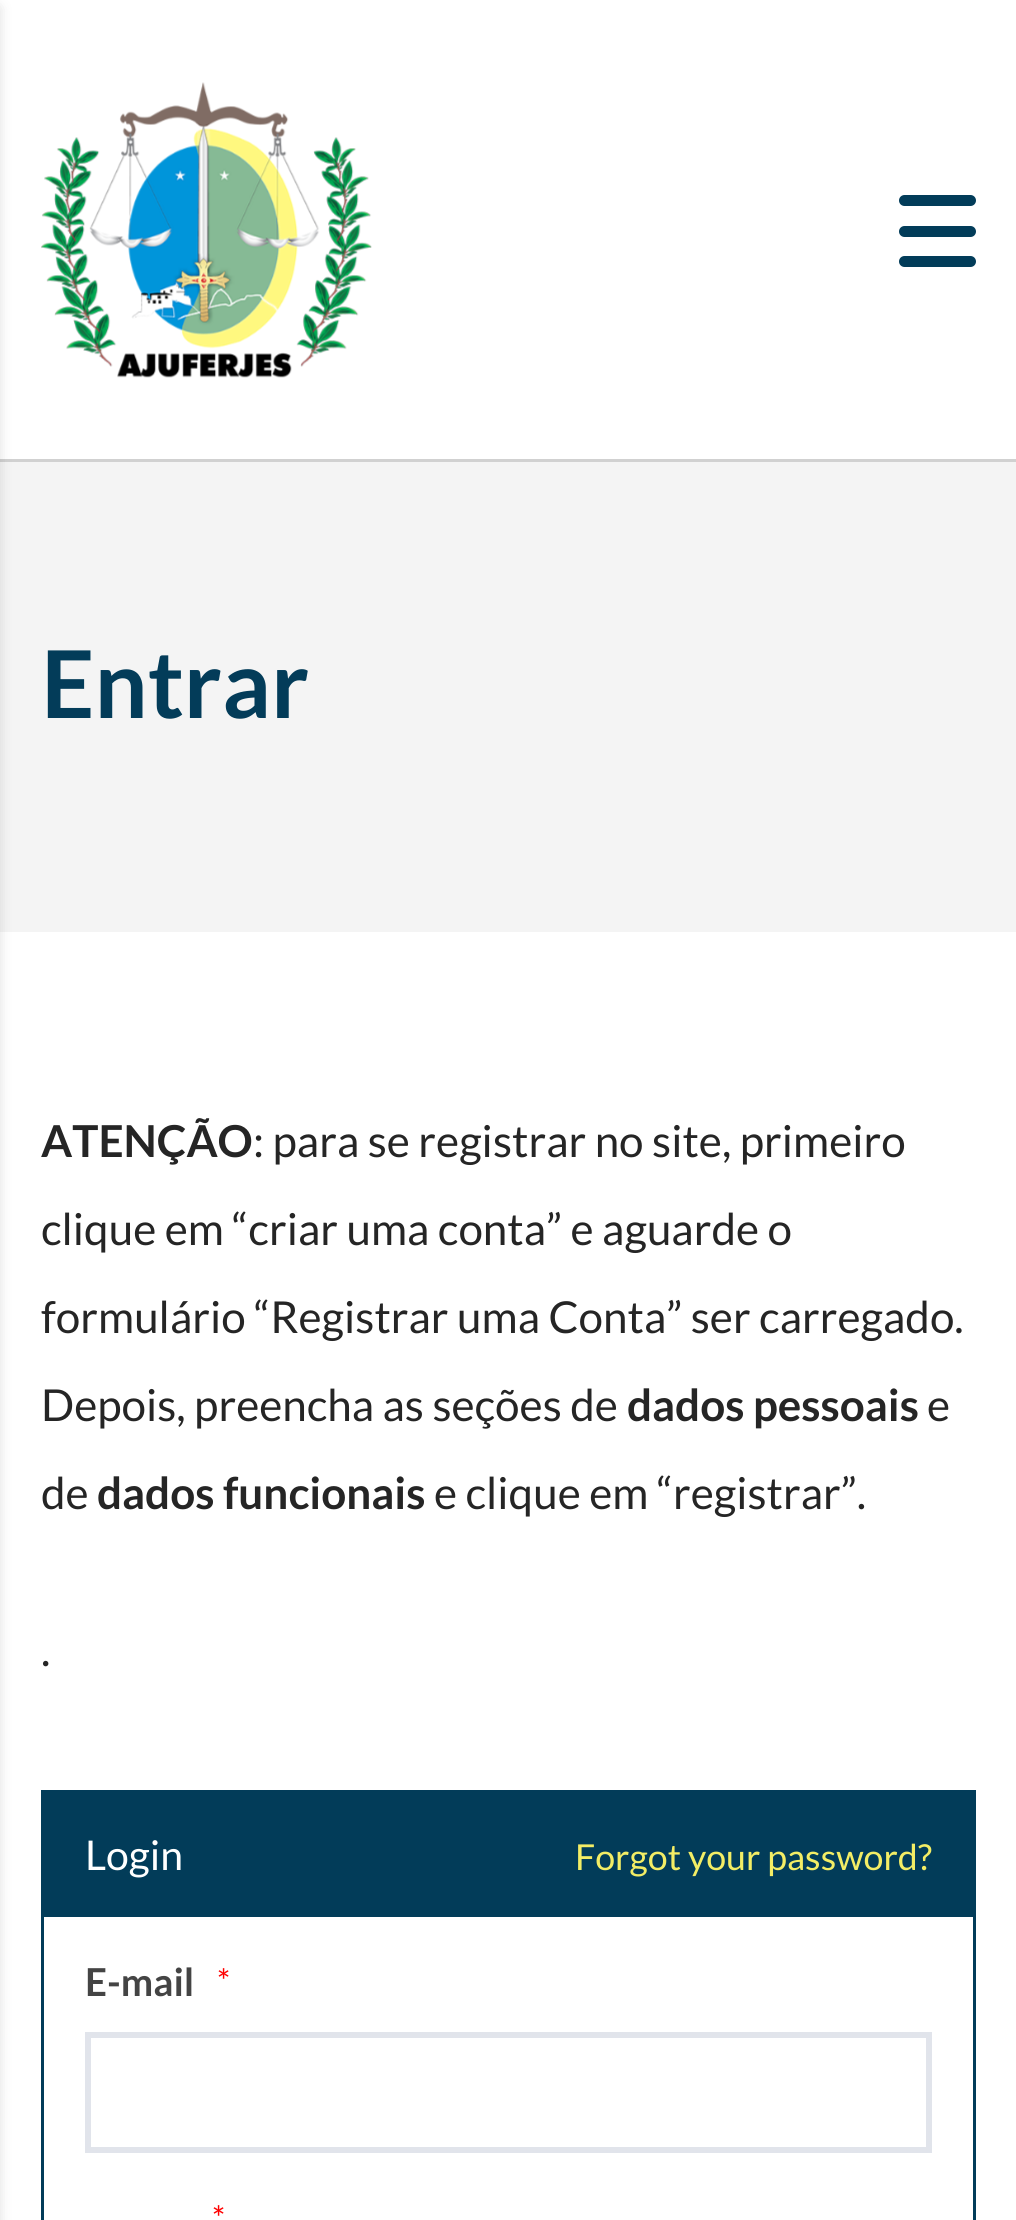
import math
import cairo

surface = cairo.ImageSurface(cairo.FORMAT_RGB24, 1016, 2220)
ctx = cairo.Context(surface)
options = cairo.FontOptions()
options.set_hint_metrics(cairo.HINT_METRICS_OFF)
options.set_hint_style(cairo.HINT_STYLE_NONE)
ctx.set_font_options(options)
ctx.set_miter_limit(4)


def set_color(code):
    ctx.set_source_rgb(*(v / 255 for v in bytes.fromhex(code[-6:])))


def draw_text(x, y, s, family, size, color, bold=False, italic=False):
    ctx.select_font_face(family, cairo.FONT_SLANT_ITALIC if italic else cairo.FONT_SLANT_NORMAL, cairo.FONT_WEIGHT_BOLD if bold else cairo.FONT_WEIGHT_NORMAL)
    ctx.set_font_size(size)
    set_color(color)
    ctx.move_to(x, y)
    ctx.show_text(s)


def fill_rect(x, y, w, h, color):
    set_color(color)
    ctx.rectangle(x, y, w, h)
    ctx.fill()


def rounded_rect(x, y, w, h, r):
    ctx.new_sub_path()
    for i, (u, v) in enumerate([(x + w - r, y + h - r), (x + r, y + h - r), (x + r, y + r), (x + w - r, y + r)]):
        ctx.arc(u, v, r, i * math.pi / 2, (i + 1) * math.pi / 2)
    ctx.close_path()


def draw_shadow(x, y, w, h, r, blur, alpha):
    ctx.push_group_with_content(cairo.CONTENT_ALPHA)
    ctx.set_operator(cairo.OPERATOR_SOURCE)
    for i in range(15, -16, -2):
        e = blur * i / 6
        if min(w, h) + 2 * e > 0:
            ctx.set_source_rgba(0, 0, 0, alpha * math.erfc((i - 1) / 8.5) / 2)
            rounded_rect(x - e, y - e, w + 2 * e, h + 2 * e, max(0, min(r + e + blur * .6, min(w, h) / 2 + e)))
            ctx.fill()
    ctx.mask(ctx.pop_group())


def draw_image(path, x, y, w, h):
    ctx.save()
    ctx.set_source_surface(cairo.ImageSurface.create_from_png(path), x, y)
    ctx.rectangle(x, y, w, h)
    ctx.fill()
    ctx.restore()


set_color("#ffffff")
ctx.paint()
fill_rect(0, 459, 1016, 3, "#d1d1d1")
fill_rect(0, 462, 1016, 470, "#f4f4f4")
set_color("#000000")
draw_shadow(-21, 8, 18, 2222, 0, 7, 0.2)
draw_image("assets/img1.png", 41, 82, 331, 296)
set_color("#023c59")
rounded_rect(899, 195, 77, 11, 5.5)
ctx.fill()
rounded_rect(899, 226, 77, 11, 5.5)
ctx.fill()
rounded_rect(899, 256, 77, 11, 5.5)
ctx.fill()
draw_text(41, 718, "Entrar", "Lato", 93.5, "#033c59", bold=True)
draw_text(41, 1157, "ATENÇÃO", "Lato", 44, "#252525", bold=True)
draw_text(253, 1157, ": para se registrar no site, primeiro", "Lato", 44, "#252525")
draw_text(41, 1245, "clique em “criar uma conta” e aguarde o", "Lato", 44, "#252525")
draw_text(41, 1333, "formulário “Registrar uma Conta” ser carregado.", "Lato", 44, "#252525")
draw_text(41, 1421, "Depois, preencha as seções de", "Lato", 44, "#252525")
draw_text(627, 1421, "dados pessoais", "Lato", 44, "#252525", bold=True)
draw_text(927, 1421, "e", "Lato", 44, "#252525")
draw_text(41, 1509, "de", "Lato", 44, "#252525")
draw_text(97, 1509, "dados funcionais", "Lato", 44, "#252525", bold=True)
draw_text(434, 1509, "e clique em “registrar”.", "Lato", 44, "#252525")
draw_text(41, 1666, ".", "Lato", 44, "#252525")
ctx.rectangle(42.5, 1791.5, 932, 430)
set_color("#023c59")
ctx.set_line_width(3)
ctx.stroke()
fill_rect(44, 1793, 929, 124, "#023c59")
draw_text(85, 1870, "Login", "Lato", 41, "#ffffff")
draw_text(575, 1870, "Forgot your password?", "Lato", 35.75, "#f3ed65")
draw_text(85, 1996, "E-mail", "Lato", 38.5, "#444444", bold=True)
draw_text(217, 1993, "*", "Lato", 33, "#ff0000")
ctx.rectangle(88, 2035, 841, 115)
set_color("#e1e4eb")
ctx.set_line_width(6)
ctx.stroke()
draw_text(212, 2230, "*", "Lato", 33, "#ff0000")
surface.write_to_png("output.png")
